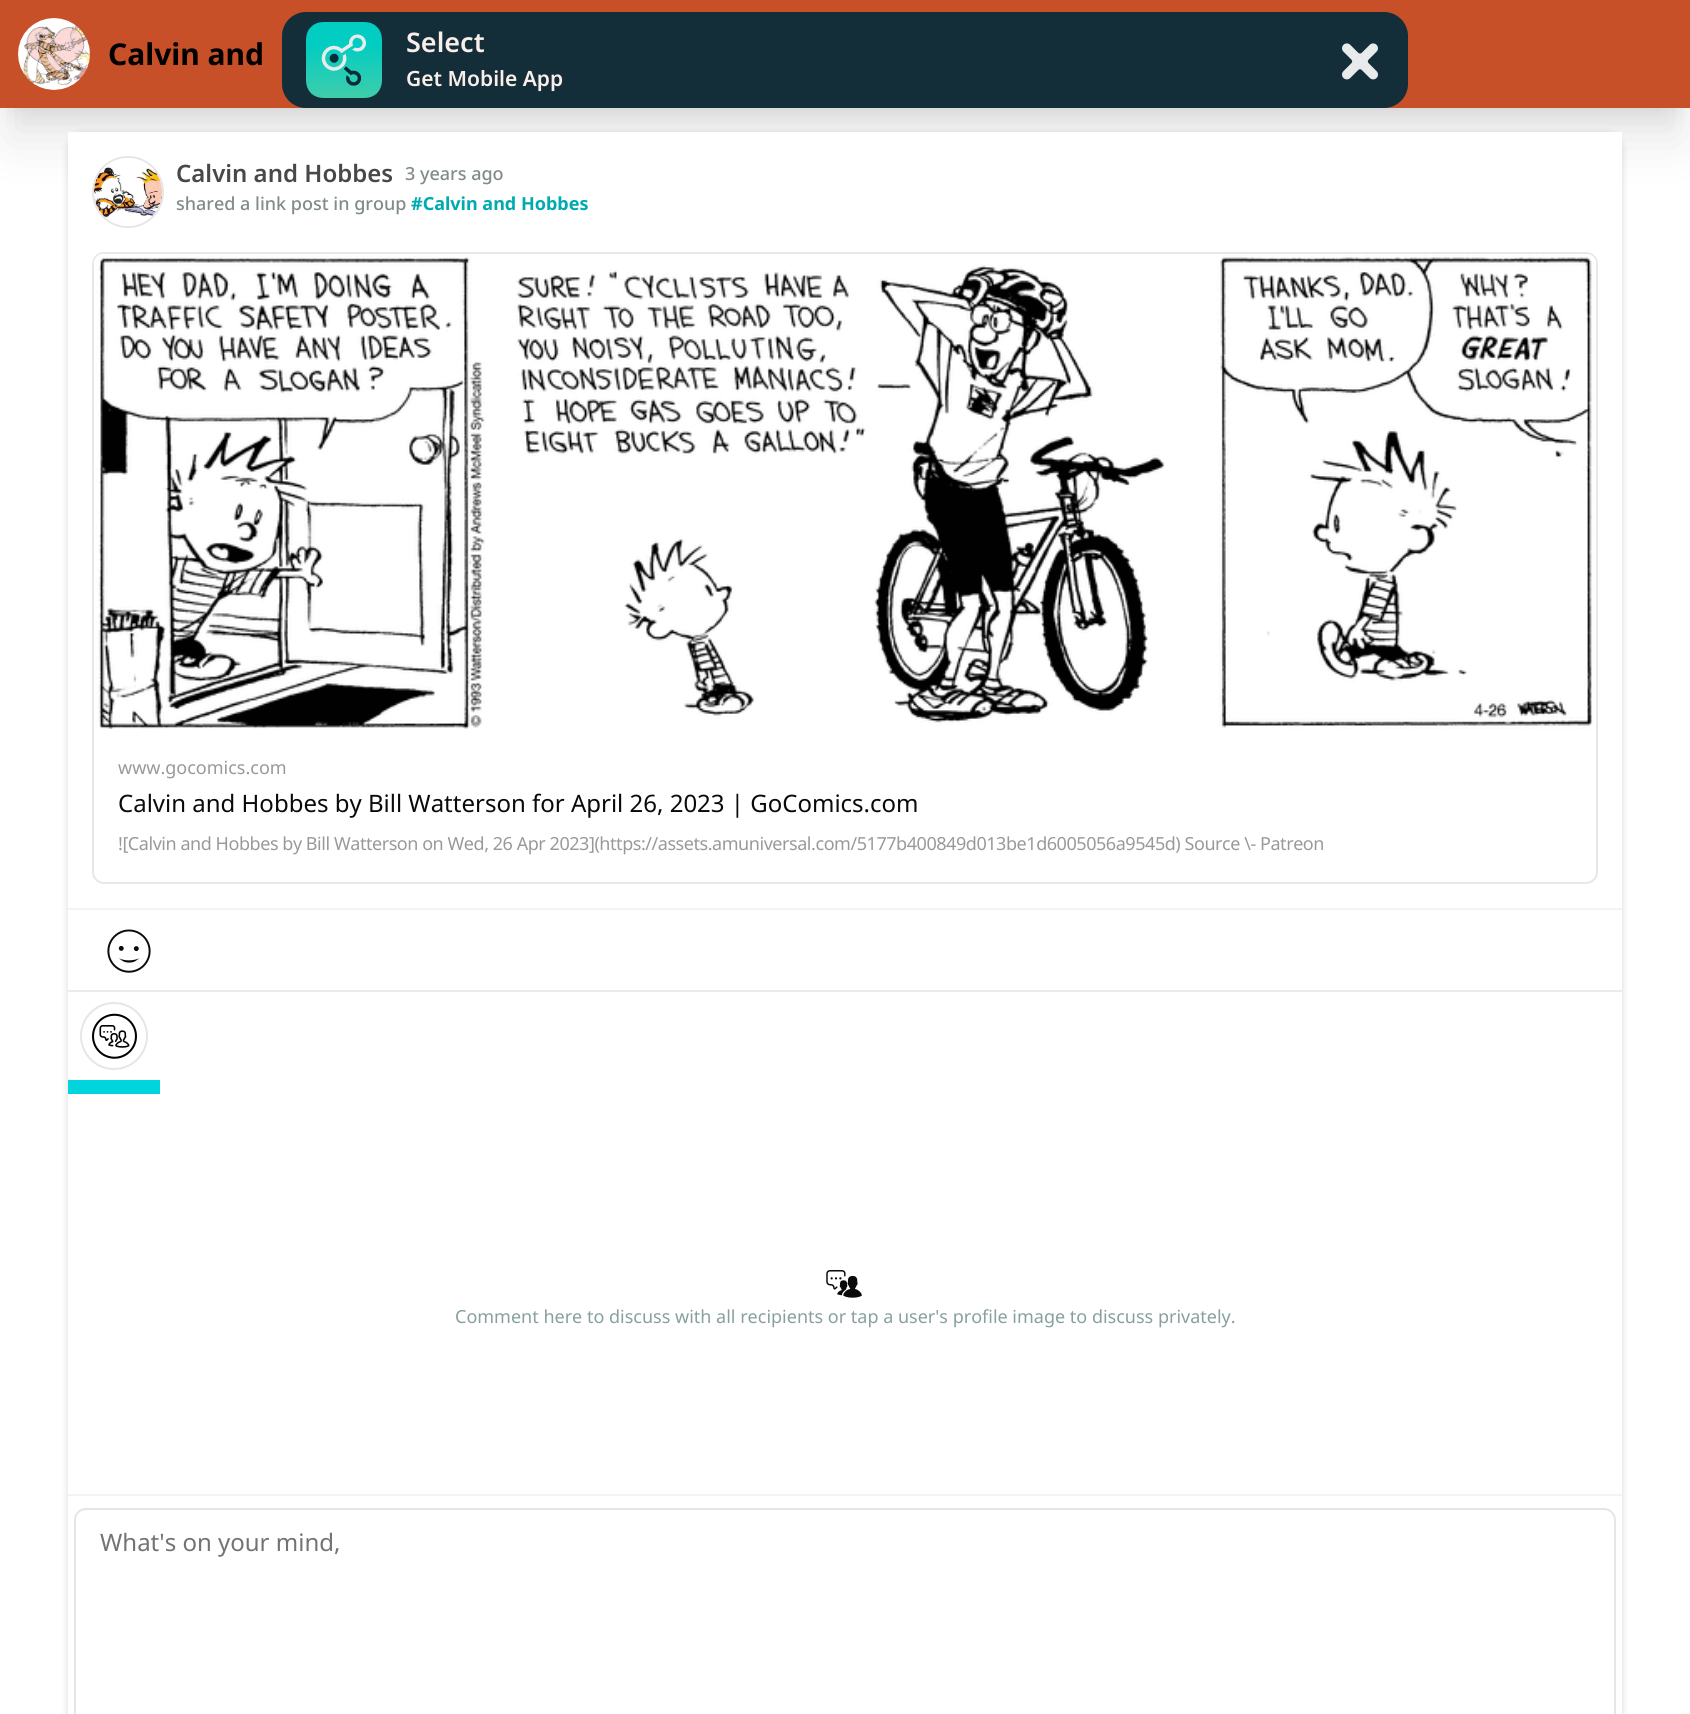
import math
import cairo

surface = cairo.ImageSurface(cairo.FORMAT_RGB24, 1690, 1714)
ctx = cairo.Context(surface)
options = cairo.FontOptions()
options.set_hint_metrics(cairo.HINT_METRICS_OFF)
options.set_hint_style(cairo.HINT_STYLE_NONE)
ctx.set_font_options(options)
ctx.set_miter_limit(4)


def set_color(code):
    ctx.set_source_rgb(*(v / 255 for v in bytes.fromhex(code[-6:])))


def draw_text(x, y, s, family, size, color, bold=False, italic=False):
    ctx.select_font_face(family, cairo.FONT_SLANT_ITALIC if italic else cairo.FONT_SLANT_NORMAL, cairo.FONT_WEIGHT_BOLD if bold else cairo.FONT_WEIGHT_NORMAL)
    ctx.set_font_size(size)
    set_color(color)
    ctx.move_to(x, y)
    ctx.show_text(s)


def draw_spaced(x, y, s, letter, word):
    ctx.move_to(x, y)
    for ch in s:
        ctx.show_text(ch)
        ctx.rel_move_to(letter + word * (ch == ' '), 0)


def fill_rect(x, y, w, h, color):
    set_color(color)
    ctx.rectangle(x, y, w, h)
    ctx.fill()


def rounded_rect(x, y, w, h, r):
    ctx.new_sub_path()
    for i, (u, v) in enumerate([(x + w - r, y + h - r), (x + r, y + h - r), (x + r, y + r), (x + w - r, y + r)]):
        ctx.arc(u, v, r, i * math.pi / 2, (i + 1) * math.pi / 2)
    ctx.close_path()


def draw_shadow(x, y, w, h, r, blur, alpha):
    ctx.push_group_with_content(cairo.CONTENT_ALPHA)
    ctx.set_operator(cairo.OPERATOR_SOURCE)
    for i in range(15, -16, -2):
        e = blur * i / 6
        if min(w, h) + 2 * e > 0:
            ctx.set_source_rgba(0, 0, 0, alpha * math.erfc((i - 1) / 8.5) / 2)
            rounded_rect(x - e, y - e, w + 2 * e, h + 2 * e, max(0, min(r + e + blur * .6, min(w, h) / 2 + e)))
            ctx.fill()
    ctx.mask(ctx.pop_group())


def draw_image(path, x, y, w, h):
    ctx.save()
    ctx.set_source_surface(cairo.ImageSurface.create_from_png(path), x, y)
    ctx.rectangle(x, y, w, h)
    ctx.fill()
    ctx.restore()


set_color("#ffffff")
ctx.paint()
set_color("#000000")
draw_shadow(12, 28, 1666, 84, 0, 10, 0.1)
draw_shadow(10, 50, 1670, 88, 0, 25, 0.1)
fill_rect(0, 0, 1690, 108, "#c85028")
draw_image("assets/img1.png", 18, 18, 72, 72)
draw_text(108, 65, "Calvin and", "Noto Sans", 30, "#000000", bold=True)
ctx.set_source_rgba(0, 0.169, 0.231, 0.9)
rounded_rect(282, 12, 1126, 96, 24)
ctx.fill()
draw_image("assets/img2.png", 306, 22, 76, 76)
draw_text(406, 52, "Select", "Noto Sans SemiBold", 27, "#faeeea")
draw_text(406, 86, "Get Mobile App", "Noto Sans SemiBold", 21, "#faeeea")
draw_image("assets/img3.png", 1342, 43, 36, 37)
set_color("#000000")
draw_shadow(68, 134, 1554, 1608, 16, 4, 0.15)
fill_rect(68, 992, 1554, 722, "#ffffff")
fill_rect(68, 132, 1554, 858, "#ffffff")
ctx.arc(128, 192, 35, 0, 2 * math.pi)
set_color("#e6e6e6")
ctx.stroke()
draw_image("assets/img4.png", 94, 158, 68, 68)
draw_text(176, 182, "Calvin and Hobbes", "Noto Sans SemiBold", 24, "#484848")
draw_text(405, 180, "3 years ago", "Noto Sans Medium", 18, "#818b8b")
draw_text(176, 210, "shared a link post in group", "Noto Sans Medium", 18, "#818b8b")
draw_text(411, 210, "#Calvin and Hobbes", "Noto Sans", 18, "#00aab1", bold=True)
rounded_rect(93, 253, 1504, 630, 11)
set_color("#e5e7eb")
ctx.stroke()
draw_image("assets/img5.png", 94, 254, 1502, 475)
draw_text(118, 774, "www.gocomics.com", "Noto Sans", 18, "#999999")
draw_text(118, 812, "Calvin and Hobbes by Bill Watterson for April 26, 2023 | GoComics.com", "Noto Sans", 24, "#0a0a0a")
ctx.set_font_size(18)
set_color("#999999")
draw_spaced(118, 850, "![Calvin and Hobbes by Bill Watterson on Wed, 26 Apr 2023](https://assets.amuniversal.com/5177b400849d013be1d6005056a9545d) Source \\- Patreon", -0.45, 0)
fill_rect(68, 908, 1554, 2, "#f1f3f4")
draw_image("assets/img6.png", 107, 929, 44, 44)
fill_rect(68, 990, 1554, 2, "#eaebeb")
fill_rect(68, 1080, 92, 14, "#00d4dd")
ctx.arc(114, 1036, 33, 0, 2 * math.pi)
set_color("#e6e6e6")
ctx.stroke()
draw_image("assets/img7.png", 92, 1013, 45, 46)
draw_image("assets/img8.png", 826, 1270, 36, 28)
draw_text(455, 1323, "Comment here to discuss with all recipients or tap a user's profile image to discuss privately.", "Noto Sans", 18, "#87a09f")
fill_rect(68, 1494, 1554, 2, "#f1f3f4")
rounded_rect(75, 1509, 1540, 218, 11)
set_color("#e5e5e5")
ctx.stroke()
draw_text(100, 1551, "What's on your mind,", "Noto Sans", 24, "#737373")
surface.write_to_png("output.png")
